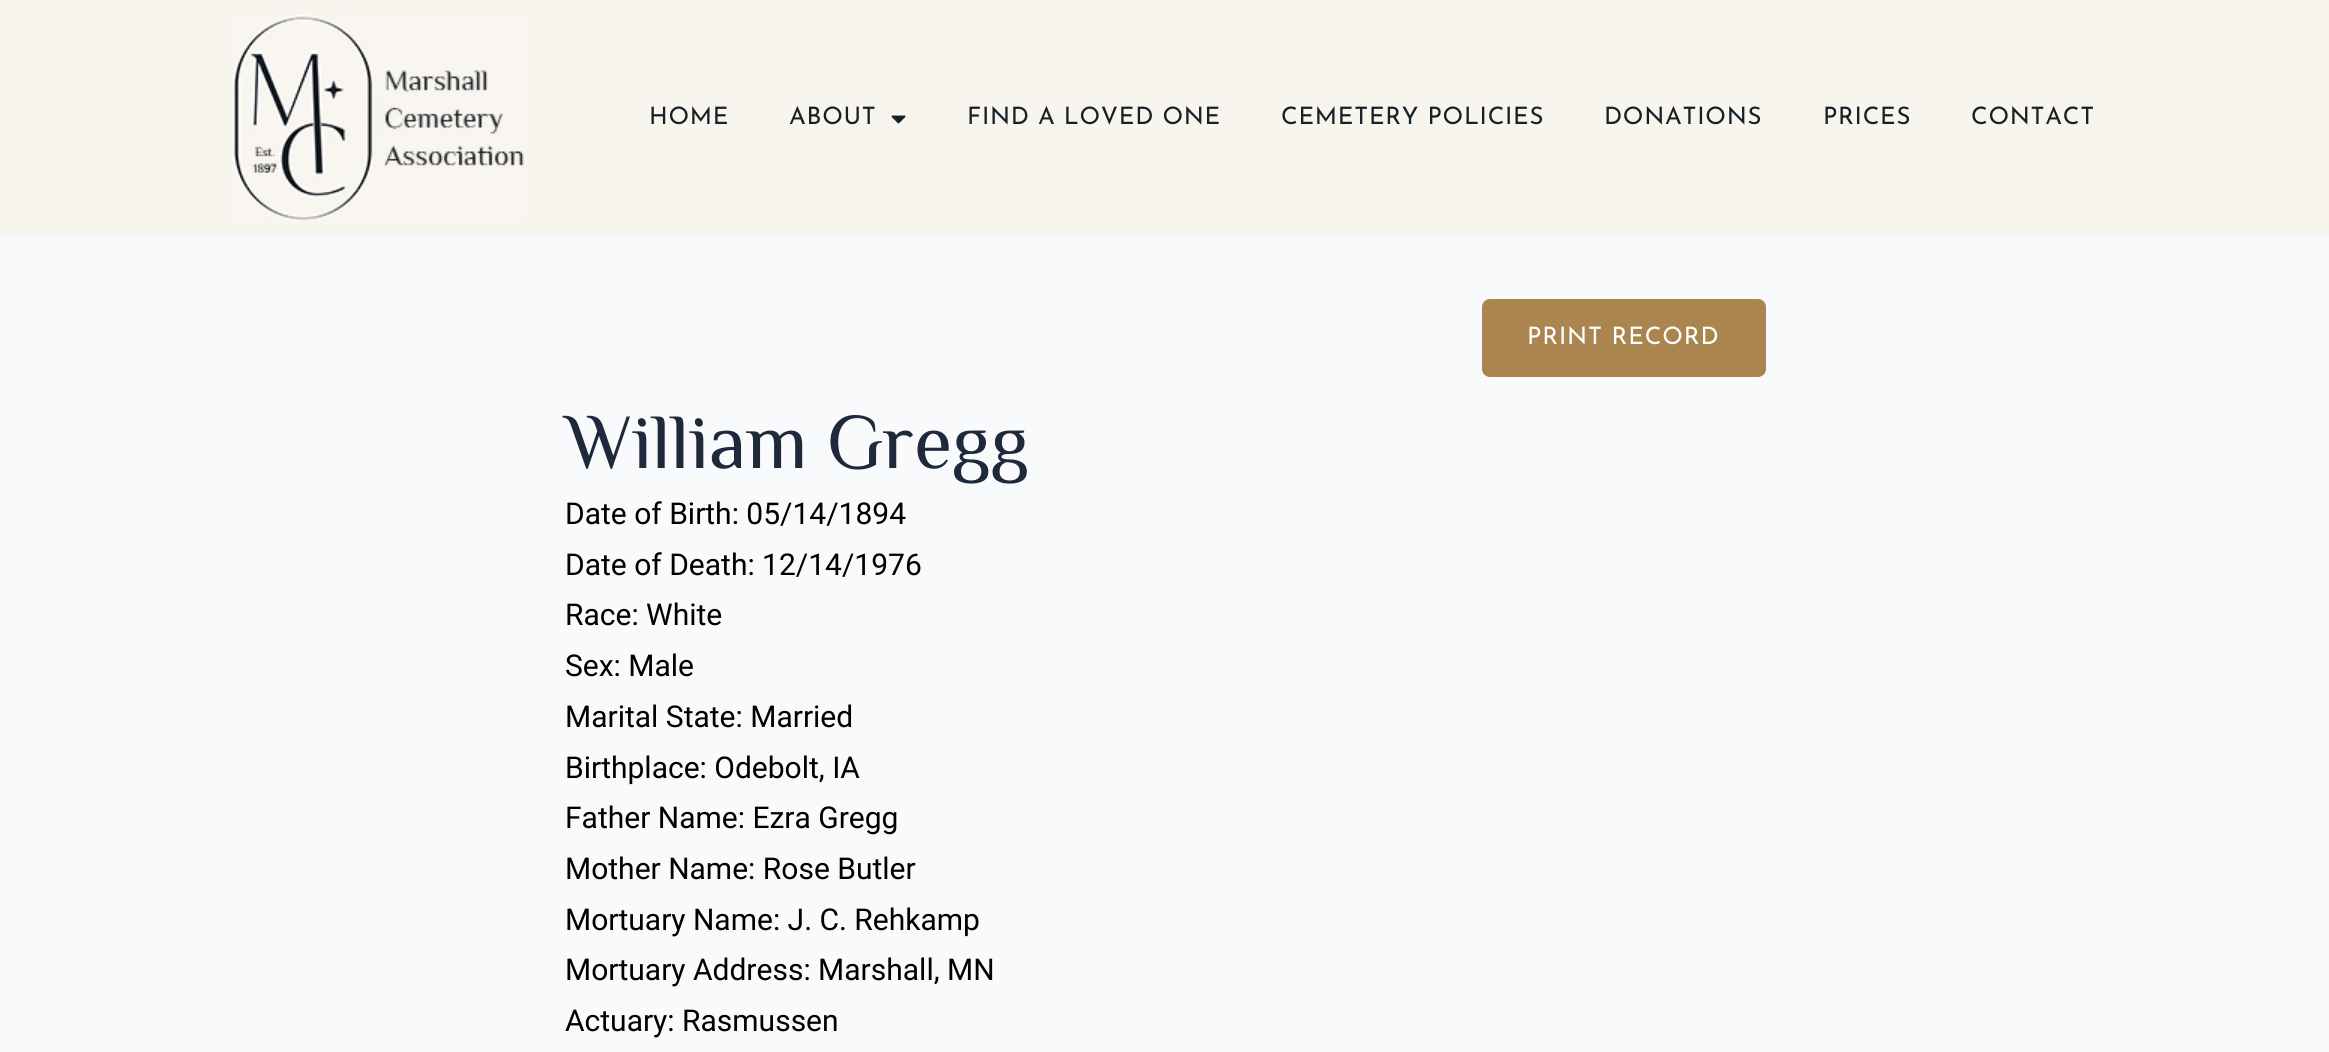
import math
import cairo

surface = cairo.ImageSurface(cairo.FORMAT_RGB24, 2329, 1052)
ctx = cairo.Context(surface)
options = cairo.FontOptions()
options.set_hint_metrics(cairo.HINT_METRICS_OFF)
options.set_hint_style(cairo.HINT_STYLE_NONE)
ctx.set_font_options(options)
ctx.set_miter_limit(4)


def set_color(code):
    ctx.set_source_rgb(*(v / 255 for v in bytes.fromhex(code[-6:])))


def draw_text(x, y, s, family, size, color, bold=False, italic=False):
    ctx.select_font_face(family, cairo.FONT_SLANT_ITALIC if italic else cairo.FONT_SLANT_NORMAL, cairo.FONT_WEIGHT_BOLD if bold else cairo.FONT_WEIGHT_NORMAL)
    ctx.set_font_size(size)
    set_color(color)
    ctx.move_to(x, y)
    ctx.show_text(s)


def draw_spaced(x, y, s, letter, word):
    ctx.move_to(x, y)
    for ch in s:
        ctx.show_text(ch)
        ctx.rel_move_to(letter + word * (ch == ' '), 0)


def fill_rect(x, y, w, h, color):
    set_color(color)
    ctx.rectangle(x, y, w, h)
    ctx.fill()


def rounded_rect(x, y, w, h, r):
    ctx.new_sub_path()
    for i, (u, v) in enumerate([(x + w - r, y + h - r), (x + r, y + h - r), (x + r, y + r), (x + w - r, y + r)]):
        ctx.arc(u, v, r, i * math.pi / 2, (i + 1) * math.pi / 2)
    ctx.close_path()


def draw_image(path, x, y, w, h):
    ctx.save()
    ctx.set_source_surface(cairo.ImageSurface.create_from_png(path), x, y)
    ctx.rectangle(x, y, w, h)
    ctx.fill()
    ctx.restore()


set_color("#f9fafb")
ctx.paint()
fill_rect(0, 0, 2329, 236, "#f8f5ef")
draw_image("assets/img1.png", 232, 15, 292, 206)
ctx.select_font_face("Josefin Sans")
ctx.set_font_size(24)
set_color("#162027")
draw_spaced(649, 124, "HOME", 0.75, 0)
draw_spaced(789, 124, "ABOUT", 0.75, 0)
draw_image("assets/img2.png", 891, 115, 15, 9)
draw_spaced(967, 124, "FIND A LOVED ONE", 0.75, 0)
draw_spaced(1281, 124, "CEMETERY POLICIES", 0.75, 0)
draw_spaced(1604, 124, "DONATIONS", 0.75, 0)
draw_spaced(1823, 124, "PRICES", 0.75, 0)
draw_spaced(1971, 124, "CONTACT", 0.75, 0)
set_color("#aa854f")
rounded_rect(1482, 299, 284, 78, 8)
ctx.fill()
set_color("#ffffff")
draw_spaced(1527, 344, "PRINT RECORD", 0.9, 0)
draw_text(565, 468, "William Gregg", "ZCOOL XiaoWei", 78, "#1e293b")
draw_text(565, 524, "Date of Birth: 05/14/1894", "Roboto", 30, "#000000")
draw_text(565, 575, "Date of Death: 12/14/1976", "Roboto", 30, "#000000")
draw_text(565, 625, "Race: White", "Roboto", 30, "#000000")
draw_text(565, 676, "Sex: Male", "Roboto", 30, "#000000")
draw_text(565, 727, "Marital State: Married", "Roboto", 30, "#000000")
draw_text(565, 778, "Birthplace: Odebolt, IA", "Roboto", 30, "#000000")
draw_text(565, 828, "Father Name: Ezra Gregg", "Roboto", 30, "#000000")
draw_text(565, 879, "Mother Name: Rose Butler", "Roboto", 30, "#000000")
draw_text(565, 930, "Mortuary Name: J. C. Rehkamp", "Roboto", 30, "#000000")
draw_text(565, 980, "Mortuary Address: Marshall, MN", "Roboto", 30, "#000000")
draw_text(565, 1031, "Actuary: Rasmussen", "Roboto", 30, "#000000")
surface.write_to_png("output.png")
